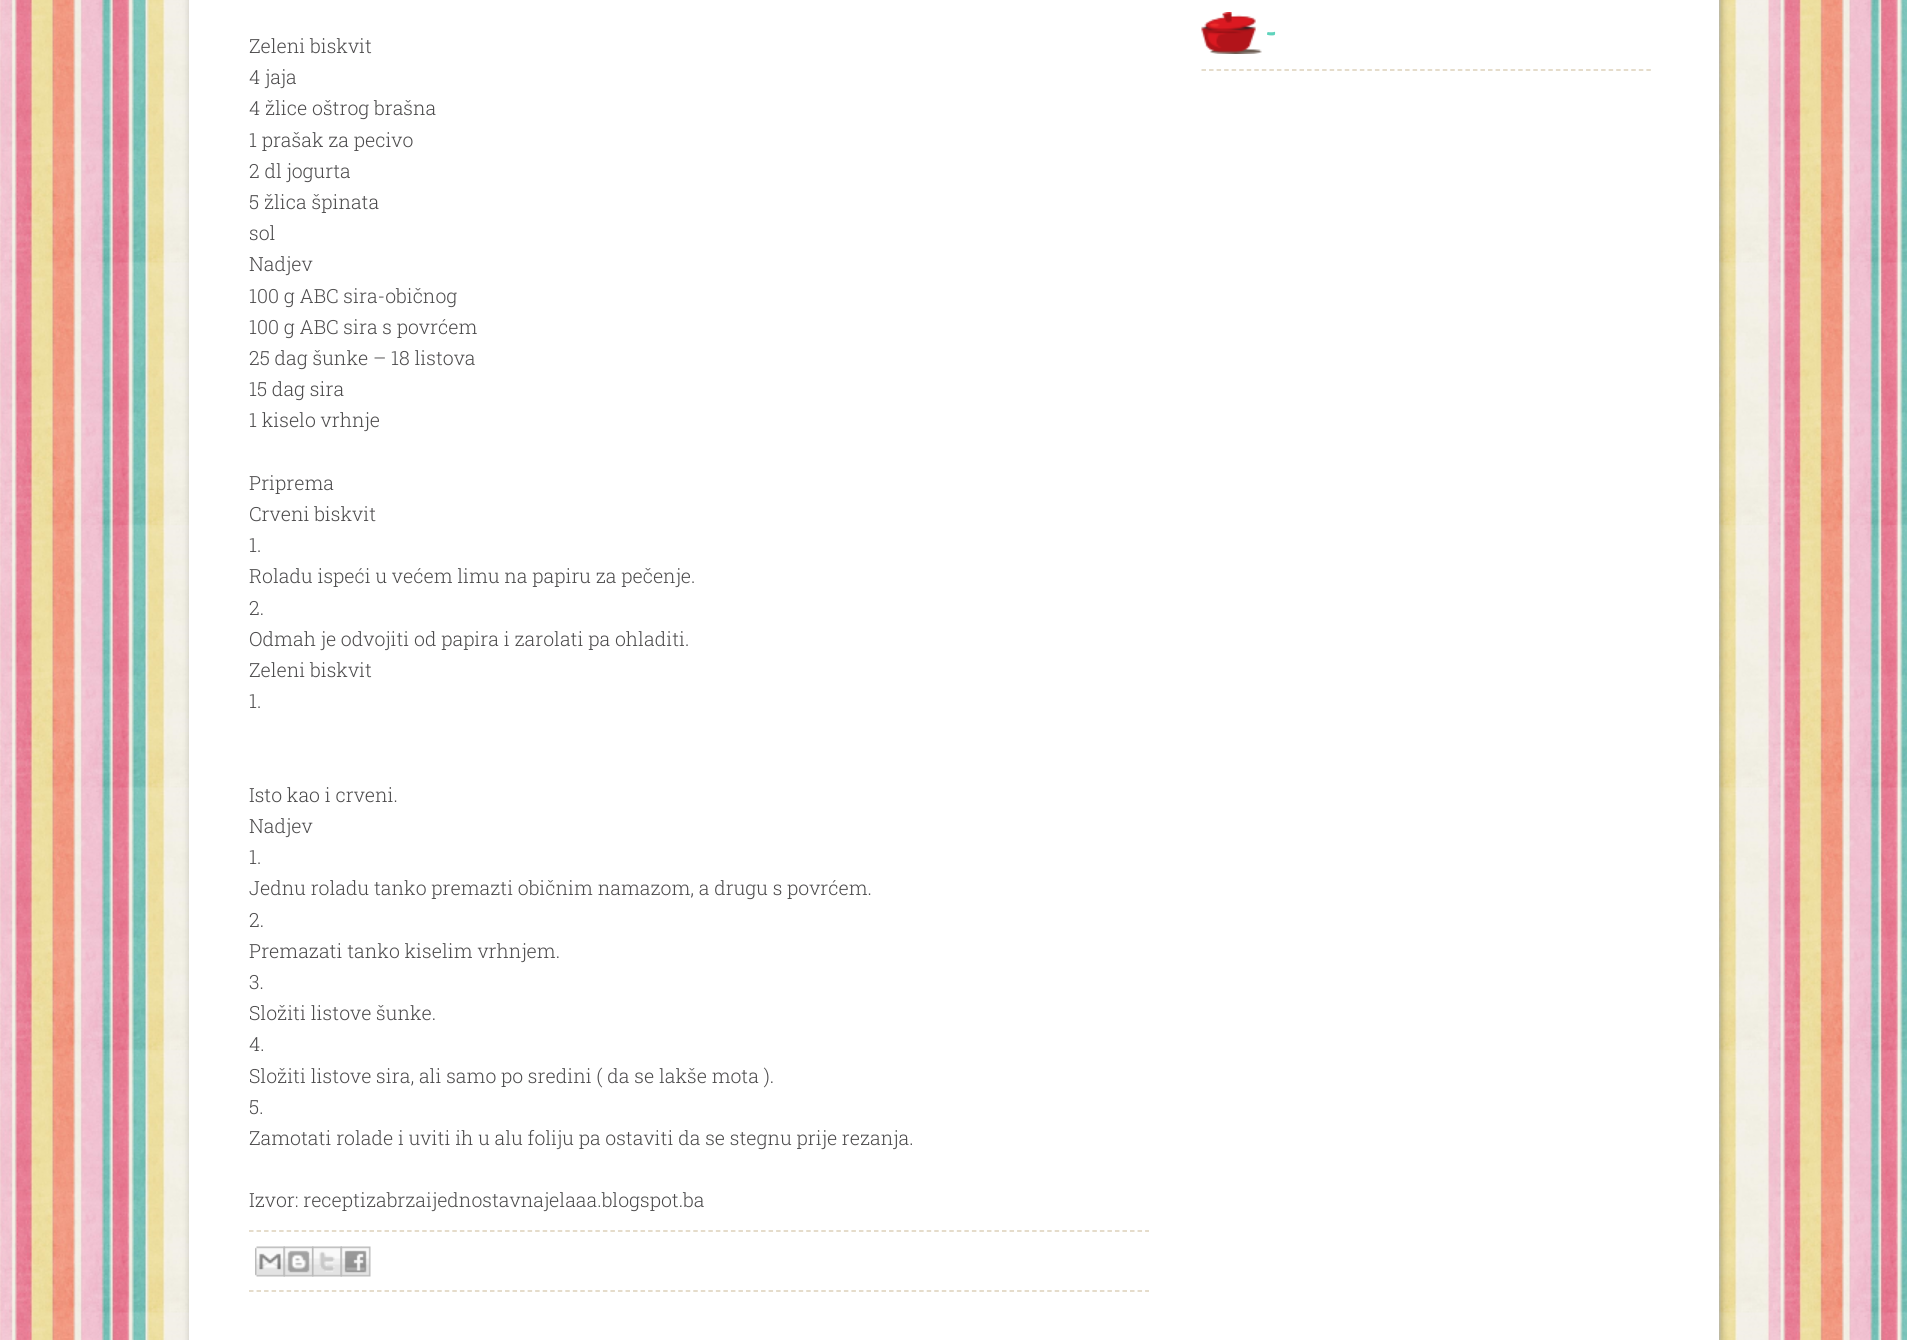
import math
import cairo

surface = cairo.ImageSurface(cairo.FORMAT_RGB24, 1907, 1340)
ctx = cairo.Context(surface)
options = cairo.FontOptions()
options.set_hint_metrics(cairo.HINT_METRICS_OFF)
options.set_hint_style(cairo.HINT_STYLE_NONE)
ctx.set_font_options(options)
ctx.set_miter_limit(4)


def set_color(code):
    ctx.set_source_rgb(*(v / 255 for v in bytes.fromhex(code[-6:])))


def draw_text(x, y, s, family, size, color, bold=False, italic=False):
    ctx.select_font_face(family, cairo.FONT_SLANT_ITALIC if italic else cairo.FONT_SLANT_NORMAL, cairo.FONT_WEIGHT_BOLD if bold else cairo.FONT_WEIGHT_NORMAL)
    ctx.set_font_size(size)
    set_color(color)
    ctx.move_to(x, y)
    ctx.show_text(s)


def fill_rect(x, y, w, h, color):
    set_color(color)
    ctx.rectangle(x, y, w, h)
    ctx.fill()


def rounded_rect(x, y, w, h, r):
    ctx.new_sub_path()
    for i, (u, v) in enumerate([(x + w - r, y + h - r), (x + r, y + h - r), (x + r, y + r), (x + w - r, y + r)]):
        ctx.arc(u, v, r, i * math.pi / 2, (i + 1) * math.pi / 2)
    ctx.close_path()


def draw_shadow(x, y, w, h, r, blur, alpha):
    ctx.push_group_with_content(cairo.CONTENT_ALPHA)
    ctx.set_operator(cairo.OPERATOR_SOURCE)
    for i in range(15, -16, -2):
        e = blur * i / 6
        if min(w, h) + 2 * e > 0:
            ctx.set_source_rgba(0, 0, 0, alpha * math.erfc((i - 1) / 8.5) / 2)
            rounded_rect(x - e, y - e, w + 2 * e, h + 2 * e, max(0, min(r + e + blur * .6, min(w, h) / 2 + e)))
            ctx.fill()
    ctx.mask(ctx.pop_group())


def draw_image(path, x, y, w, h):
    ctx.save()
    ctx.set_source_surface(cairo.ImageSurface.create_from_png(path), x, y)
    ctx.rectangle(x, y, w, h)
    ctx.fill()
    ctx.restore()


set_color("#ffffff")
ctx.paint()
draw_image("assets/img1.png", 0, 0, 1907, 1340)
set_color("#000000")
draw_shadow(191, -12, 1530, 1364, 0, 4, 0.3)
fill_rect(189, 0, 1530, 1340, "#ffffff")
draw_image("assets/img2.png", 1201, 12, 61, 42)
ctx.new_path()
ctx.move_to(1201.5, 70)
ctx.line_to(1651.5, 70)
set_color("#dcd1ba")
ctx.set_line_width(1.5)
ctx.set_dash([4.5, 3.04])
ctx.stroke()
draw_text(1265, 41, "-", "Engagement", 42, "#5fd3bc")
draw_text(249, 53, "Zeleni biskvit", "Roboto Slab Light", 19.5, "#4c4b4c")
draw_text(249, 84, "4 jaja", "Roboto Slab Light", 19.5, "#4c4b4c")
draw_text(249, 115, "4 žlice oštrog brašna", "Roboto Slab Light", 19.5, "#4c4b4c")
draw_text(249, 147, "1 prašak za pecivo", "Roboto Slab Light", 19.5, "#4c4b4c")
draw_text(249, 178, "2 dl jogurta", "Roboto Slab Light", 19.5, "#4c4b4c")
draw_text(249, 209, "5 žlica špinata", "Roboto Slab Light", 19.5, "#4c4b4c")
draw_text(249, 240, "sol", "Roboto Slab Light", 19.5, "#4c4b4c")
draw_text(249, 271, "Nadjev", "Roboto Slab Light", 19.5, "#4c4b4c")
draw_text(249, 303, "100 g ABC sira-običnog", "Roboto Slab Light", 19.5, "#4c4b4c")
draw_text(249, 334, "100 g ABC sira s povrćem", "Roboto Slab Light", 19.5, "#4c4b4c")
draw_text(249, 365, "25 dag šunke – 18 listova", "Roboto Slab Light", 19.5, "#4c4b4c")
draw_text(249, 396, "15 dag sira", "Roboto Slab Light", 19.5, "#4c4b4c")
draw_text(249, 427, "1 kiselo vrhnje", "Roboto Slab Light", 19.5, "#4c4b4c")
draw_text(249, 490, "Priprema", "Roboto Slab Light", 19.5, "#4c4b4c")
draw_text(249, 521, "Crveni biskvit", "Roboto Slab Light", 19.5, "#4c4b4c")
draw_text(249, 552, "1.", "Roboto Slab Light", 19.5, "#4c4b4c")
draw_text(249, 583, "Roladu ispeći u većem limu na papiru za pečenje.", "Roboto Slab Light", 19.5, "#4c4b4c")
draw_text(249, 615, "2.", "Roboto Slab Light", 19.5, "#4c4b4c")
draw_text(249, 646, "Odmah je odvojiti od papira i zarolati pa ohladiti.", "Roboto Slab Light", 19.5, "#4c4b4c")
draw_text(249, 677, "Zeleni biskvit", "Roboto Slab Light", 19.5, "#4c4b4c")
draw_text(249, 708, "1.", "Roboto Slab Light", 19.5, "#4c4b4c")
draw_text(249, 802, "Isto kao i crveni.", "Roboto Slab Light", 19.5, "#4c4b4c")
draw_text(249, 833, "Nadjev", "Roboto Slab Light", 19.5, "#4c4b4c")
draw_text(249, 864, "1.", "Roboto Slab Light", 19.5, "#4c4b4c")
draw_text(249, 895, "Jednu roladu tanko premazti običnim namazom, a drugu s povrćem.", "Roboto Slab Light", 19.5, "#4c4b4c")
draw_text(249, 927, "2.", "Roboto Slab Light", 19.5, "#4c4b4c")
draw_text(249, 958, "Premazati tanko kiselim vrhnjem.", "Roboto Slab Light", 19.5, "#4c4b4c")
draw_text(249, 989, "3.", "Roboto Slab Light", 19.5, "#4c4b4c")
draw_text(249, 1020, "Složiti listove šunke.", "Roboto Slab Light", 19.5, "#4c4b4c")
draw_text(249, 1051, "4.", "Roboto Slab Light", 19.5, "#4c4b4c")
draw_text(249, 1083, "Složiti listove sira, ali samo po sredini ( da se lakše mota ).", "Roboto Slab Light", 19.5, "#4c4b4c")
draw_text(249, 1114, "5.", "Roboto Slab Light", 19.5, "#4c4b4c")
draw_text(249, 1145, "Zamotati rolade i uviti ih u alu foliju pa ostaviti da se stegnu prije rezanja.", "Roboto Slab Light", 19.5, "#4c4b4c")
draw_text(249, 1207, "Izvor: receptizabrzaijednostavnajelaaa.blogspot.ba", "Roboto Slab Light", 19.5, "#4c4b4c")
ctx.new_path()
ctx.move_to(249, 1231)
ctx.line_to(1149, 1231)
set_color("#dcd1ba")
ctx.set_dash([4.5, 3.03])
ctx.stroke()
ctx.new_path()
ctx.move_to(249, 1291)
ctx.line_to(1149, 1291)
ctx.stroke()
draw_image("assets/img3.png", 255, 1246, 30, 31)
draw_image("assets/img4.png", 283, 1246, 31, 31)
draw_image("assets/img5.png", 312, 1246, 30, 31)
draw_image("assets/img6.png", 340, 1246, 31, 31)
surface.write_to_png("output.png")
